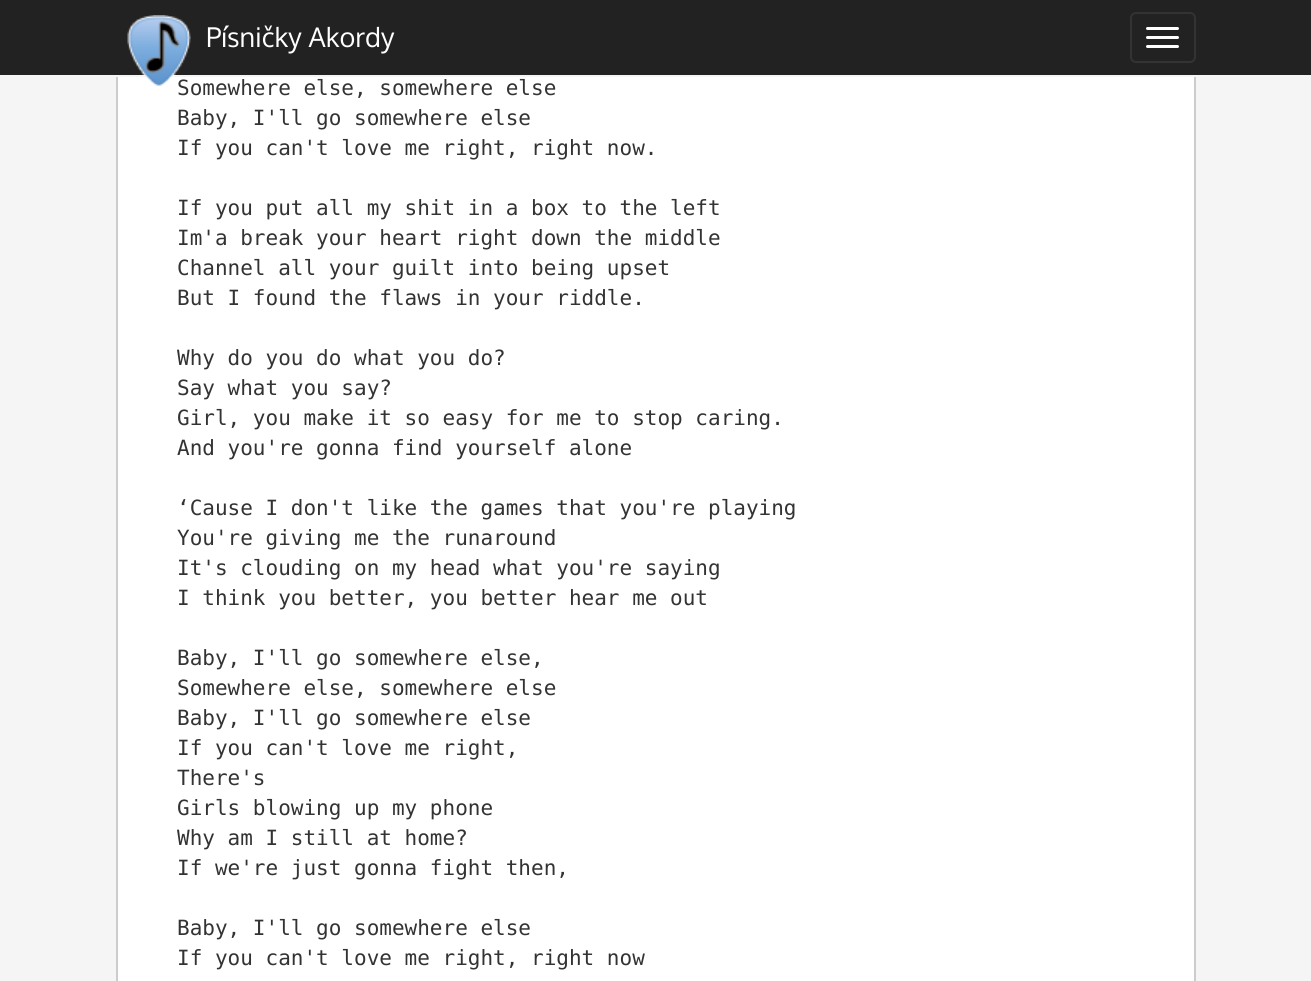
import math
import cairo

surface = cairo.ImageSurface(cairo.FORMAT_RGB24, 1311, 981)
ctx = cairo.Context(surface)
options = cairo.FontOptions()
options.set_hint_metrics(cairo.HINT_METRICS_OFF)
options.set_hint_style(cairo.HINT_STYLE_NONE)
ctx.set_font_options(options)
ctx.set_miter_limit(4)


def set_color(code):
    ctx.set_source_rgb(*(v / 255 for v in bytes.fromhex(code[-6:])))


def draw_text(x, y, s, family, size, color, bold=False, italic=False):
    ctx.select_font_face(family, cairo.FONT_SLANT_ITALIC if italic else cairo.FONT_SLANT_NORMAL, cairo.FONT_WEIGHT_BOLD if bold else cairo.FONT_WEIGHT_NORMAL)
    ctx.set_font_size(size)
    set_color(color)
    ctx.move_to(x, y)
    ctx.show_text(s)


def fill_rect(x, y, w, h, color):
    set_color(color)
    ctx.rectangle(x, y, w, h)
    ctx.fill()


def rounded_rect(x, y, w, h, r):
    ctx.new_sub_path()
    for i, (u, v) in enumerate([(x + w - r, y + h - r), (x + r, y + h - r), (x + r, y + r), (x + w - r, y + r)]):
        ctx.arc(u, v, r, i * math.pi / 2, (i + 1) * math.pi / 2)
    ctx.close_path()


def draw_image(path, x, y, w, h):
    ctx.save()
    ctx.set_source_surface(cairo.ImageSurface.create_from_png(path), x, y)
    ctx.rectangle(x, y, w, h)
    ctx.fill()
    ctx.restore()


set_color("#f5f5f5")
ctx.paint()
fill_rect(118, 77, 1076, 904, "#ffffff")
ctx.rectangle(117, -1, 1078, 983)
set_color("#cccccc")
ctx.stroke()
fill_rect(0, 0, 1311, 75, "#222222")
fill_rect(116, 75, 1080, 2, "#f5f5f5")
draw_text(177, 95, "Somewhere else, somewhere else", "DejaVu Sans Mono", 21, "#333333")
draw_image("assets/img1.png", 127, 15, 64, 71)
draw_text(206, 47, "Písničky Akordy", "Oxygen", 27, "#ffffff")
rounded_rect(1131, 13, 64, 49, 5)
set_color("#333333")
ctx.stroke()
set_color("#ffffff")
rounded_rect(1146, 27, 33, 3, 1.5)
ctx.fill()
rounded_rect(1146, 36, 33, 3, 1.5)
ctx.fill()
rounded_rect(1146, 45, 33, 3, 1.5)
ctx.fill()
draw_text(177, 125, "Baby, I'll go somewhere else", "DejaVu Sans Mono", 21, "#333333")
draw_text(177, 155, "If you can't love me right, right now.", "DejaVu Sans Mono", 21, "#333333")
draw_text(177, 215, "If you put all my shit in a box to the left", "DejaVu Sans Mono", 21, "#333333")
draw_text(177, 245, "Im'a break your heart right down the middle", "DejaVu Sans Mono", 21, "#333333")
draw_text(177, 275, "Channel all your guilt into being upset", "DejaVu Sans Mono", 21, "#333333")
draw_text(177, 305, "But I found the flaws in your riddle.", "DejaVu Sans Mono", 21, "#333333")
draw_text(177, 365, "Why do you do what you do?", "DejaVu Sans Mono", 21, "#333333")
draw_text(177, 395, "Say what you say?", "DejaVu Sans Mono", 21, "#333333")
draw_text(177, 425, "Girl, you make it so easy for me to stop caring.", "DejaVu Sans Mono", 21, "#333333")
draw_text(177, 455, "And you're gonna find yourself alone", "DejaVu Sans Mono", 21, "#333333")
draw_text(177, 515, "‘Cause I don't like the games that you're playing", "DejaVu Sans Mono", 21, "#333333")
draw_text(177, 545, "You're giving me the runaround", "DejaVu Sans Mono", 21, "#333333")
draw_text(177, 575, "It's clouding on my head what you're saying", "DejaVu Sans Mono", 21, "#333333")
draw_text(177, 605, "I think you better, you better hear me out", "DejaVu Sans Mono", 21, "#333333")
draw_text(177, 665, "Baby, I'll go somewhere else,", "DejaVu Sans Mono", 21, "#333333")
draw_text(177, 695, "Somewhere else, somewhere else", "DejaVu Sans Mono", 21, "#333333")
draw_text(177, 725, "Baby, I'll go somewhere else", "DejaVu Sans Mono", 21, "#333333")
draw_text(177, 755, "If you can't love me right,", "DejaVu Sans Mono", 21, "#333333")
draw_text(177, 785, "There's", "DejaVu Sans Mono", 21, "#333333")
draw_text(177, 815, "Girls blowing up my phone", "DejaVu Sans Mono", 21, "#333333")
draw_text(177, 845, "Why am I still at home?", "DejaVu Sans Mono", 21, "#333333")
draw_text(177, 875, "If we're just gonna fight then,", "DejaVu Sans Mono", 21, "#333333")
draw_text(177, 935, "Baby, I'll go somewhere else", "DejaVu Sans Mono", 21, "#333333")
draw_text(177, 965, "If you can't love me right, right now", "DejaVu Sans Mono", 21, "#333333")
surface.write_to_png("output.png")
